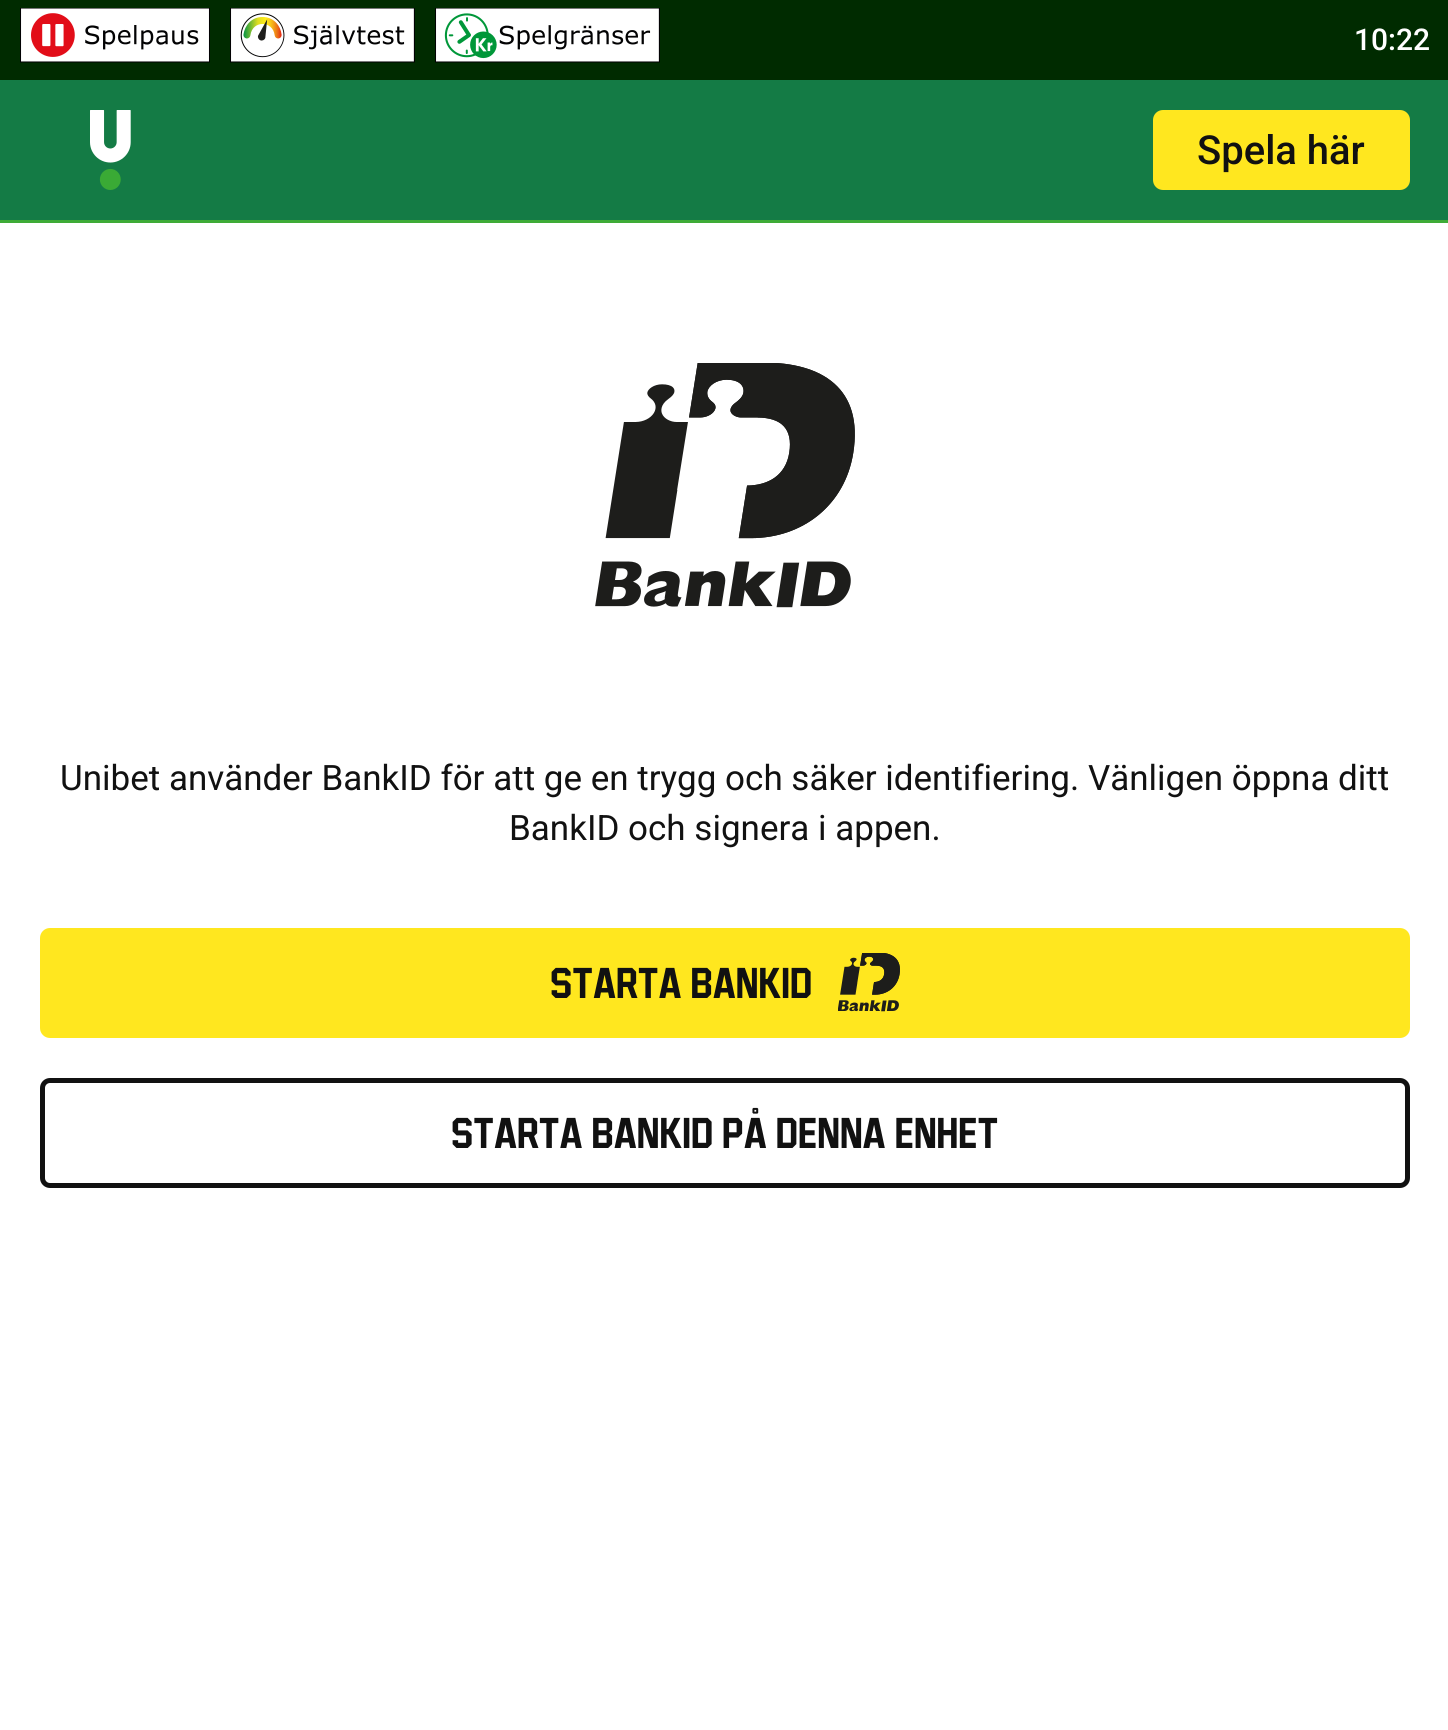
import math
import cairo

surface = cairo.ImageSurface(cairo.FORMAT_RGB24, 1448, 1730)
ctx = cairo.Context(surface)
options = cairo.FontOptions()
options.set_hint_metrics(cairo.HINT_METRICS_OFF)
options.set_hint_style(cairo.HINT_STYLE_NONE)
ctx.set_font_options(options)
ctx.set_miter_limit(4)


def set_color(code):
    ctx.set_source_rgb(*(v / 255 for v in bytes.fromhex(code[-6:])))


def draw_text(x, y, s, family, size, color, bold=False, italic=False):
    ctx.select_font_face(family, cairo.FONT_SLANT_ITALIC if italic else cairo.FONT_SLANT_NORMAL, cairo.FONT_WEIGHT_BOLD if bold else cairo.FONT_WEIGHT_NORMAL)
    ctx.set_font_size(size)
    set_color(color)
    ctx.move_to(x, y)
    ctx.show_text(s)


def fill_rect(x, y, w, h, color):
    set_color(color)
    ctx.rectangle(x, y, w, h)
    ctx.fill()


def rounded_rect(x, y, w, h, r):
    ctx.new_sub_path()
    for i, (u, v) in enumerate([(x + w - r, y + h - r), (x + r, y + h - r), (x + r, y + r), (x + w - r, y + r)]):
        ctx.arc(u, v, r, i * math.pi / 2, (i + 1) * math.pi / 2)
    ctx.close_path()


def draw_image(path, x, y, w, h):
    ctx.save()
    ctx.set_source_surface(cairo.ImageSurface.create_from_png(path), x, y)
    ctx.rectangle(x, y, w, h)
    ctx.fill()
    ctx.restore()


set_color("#ffffff")
ctx.paint()
fill_rect(0, 0, 1448, 80, "#002b00")
draw_image("assets/img1.png", 20, 8, 190, 55)
draw_image("assets/img2.png", 230, 8, 185, 55)
draw_image("assets/img3.png", 435, 8, 225, 55)
draw_text(1354, 50, "10:22", "Roboto Medium", 30, "#ffffff")
fill_rect(0, 80, 1448, 140, "#147b45")
draw_image("assets/img4.png", 90, 110, 41, 80)
set_color("#ffe71f")
rounded_rect(1155.5, 112.5, 252, 75, 7.5)
ctx.fill_preserve()
ctx.set_line_width(5)
ctx.stroke()
draw_text(1197, 164, "Spela här", "Roboto Medium", 40, "#111111")
fill_rect(0, 220, 1448, 3, "#3eab37")
draw_image("assets/img5.png", 595, 363, 260, 245)
draw_text(60, 790, "Unibet använder BankID för att ge en trygg och säker identifiering. Vänligen öppna ditt", "Roboto", 35, "#111111")
draw_text(509, 840, "BankID och signera i appen.", "Roboto", 35, "#111111")
set_color("#ffe71f")
rounded_rect(42.5, 930.5, 1365, 105, 7.5)
ctx.fill_preserve()
ctx.stroke()
draw_text(550, 998, "Starta BankID", "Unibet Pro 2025 Medium", 50, "#111111")
draw_image("assets/img6.png", 838, 953, 62, 59)
rounded_rect(42.5, 1080.5, 1365, 105, 7.5)
ctx.stroke()
draw_text(451, 1148, "Starta BankID på denna enhet", "Unibet Pro 2025 Medium", 50, "#111111")
surface.write_to_png("output.png")
